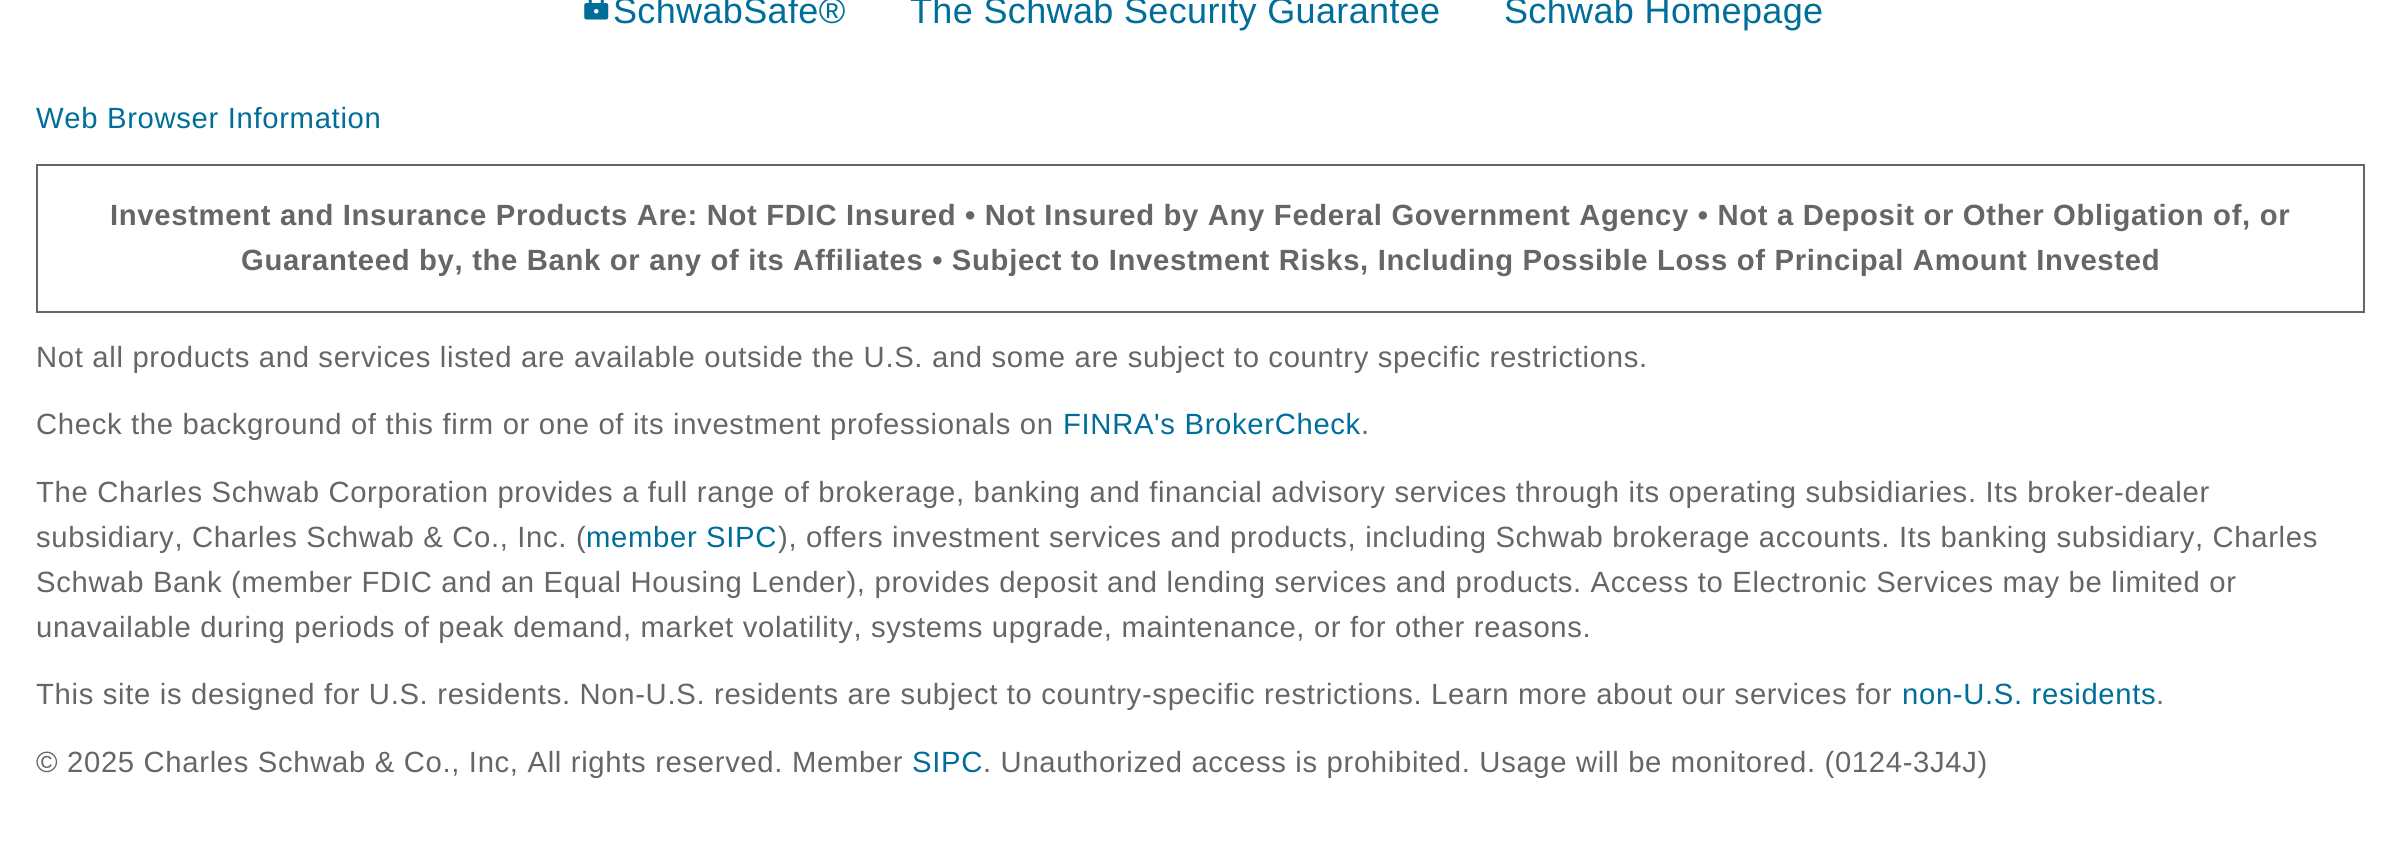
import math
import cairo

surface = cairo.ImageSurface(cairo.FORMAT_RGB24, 2400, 861)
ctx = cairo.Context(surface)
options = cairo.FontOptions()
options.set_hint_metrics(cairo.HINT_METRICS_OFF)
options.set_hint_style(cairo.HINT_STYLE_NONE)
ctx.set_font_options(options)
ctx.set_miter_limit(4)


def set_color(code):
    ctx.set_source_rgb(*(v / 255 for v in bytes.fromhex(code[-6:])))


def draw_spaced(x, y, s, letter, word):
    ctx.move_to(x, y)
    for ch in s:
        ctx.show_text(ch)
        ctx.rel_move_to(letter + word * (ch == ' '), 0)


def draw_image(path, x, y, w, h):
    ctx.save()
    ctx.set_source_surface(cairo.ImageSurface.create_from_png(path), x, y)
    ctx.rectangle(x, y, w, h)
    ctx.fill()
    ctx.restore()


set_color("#ffffff")
ctx.paint()
draw_image("assets/img1.png", 584, 0, 25, 20)
ctx.select_font_face("Liberation Sans")
ctx.set_font_size(36)
set_color("#006e99")
draw_spaced(613, 23, "SchwabSafe®", 0.35, 0)
draw_spaced(910, 23, "The Schwab Security Guarantee", 0.35, 0)
draw_spaced(1504, 23, "Schwab Homepage", 0.35, 0)
ctx.set_font_size(29.25)
draw_spaced(36, 128, "Web Browser Information", 0.67, 0)
ctx.rectangle(37, 165, 2327, 147)
set_color("#666666")
ctx.stroke()
ctx.select_font_face("Liberation Sans", cairo.FONT_SLANT_NORMAL, cairo.FONT_WEIGHT_BOLD)
draw_spaced(110, 225, "Investment and Insurance Products Are: Not FDIC Insured • Not Insured by Any Federal Government Agency • Not a Deposit or Other Obligation of, or", 0.67, 0)
draw_spaced(241, 270, "Guaranteed by, the Bank or any of its Affiliates • Subject to Investment Risks, Including Possible Loss of Principal Amount Invested", 0.67, 0)
ctx.select_font_face("Liberation Sans")
draw_spaced(36, 367, "Not all products and services listed are available outside the U.S. and some are subject to country specific restrictions.", 0.67, 0)
draw_spaced(36, 434, "Check the background of this firm or one of its investment professionals on", 0.67, 0)
set_color("#006e99")
draw_spaced(1063, 434, "FINRA's BrokerCheck", 0.67, 0)
set_color("#666666")
draw_spaced(1361, 434, ".", 0.67, 0)
draw_spaced(36, 502, "The Charles Schwab Corporation provides a full range of brokerage, banking and financial advisory services through its operating subsidiaries. Its broker-dealer", 0.67, 0)
draw_spaced(36, 547, "subsidiary, Charles Schwab & Co., Inc. (", 0.67, 0)
set_color("#006e99")
draw_spaced(586, 547, "member SIPC", 0.67, 0)
set_color("#666666")
draw_spaced(778, 547, "), offers investment services and products, including Schwab brokerage accounts. Its banking subsidiary, Charles", 0.67, 0)
draw_spaced(36, 592, "Schwab Bank (member FDIC and an Equal Housing Lender), provides deposit and lending services and products. Access to Electronic Services may be limited or", 0.67, 0)
draw_spaced(36, 637, "unavailable during periods of peak demand, market volatility, systems upgrade, maintenance, or for other reasons.", 0.67, 0)
draw_spaced(36, 704, "This site is designed for U.S. residents. Non-U.S. residents are subject to country-specific restrictions. Learn more about our services for", 0.67, 0)
set_color("#006e99")
draw_spaced(1902, 704, "non-U.S. residents", 0.67, 0)
set_color("#666666")
draw_spaced(2156, 704, ".", 0.67, 0)
draw_spaced(36, 772, "© 2025 Charles Schwab & Co., Inc, All rights reserved. Member", 0.67, 0)
set_color("#006e99")
draw_spaced(912, 772, "SIPC", 0.67, 0)
set_color("#666666")
draw_spaced(983, 772, ". Unauthorized access is prohibited. Usage will be monitored. (0124-3J4J)", 0.67, 0)
surface.write_to_png("output.png")
